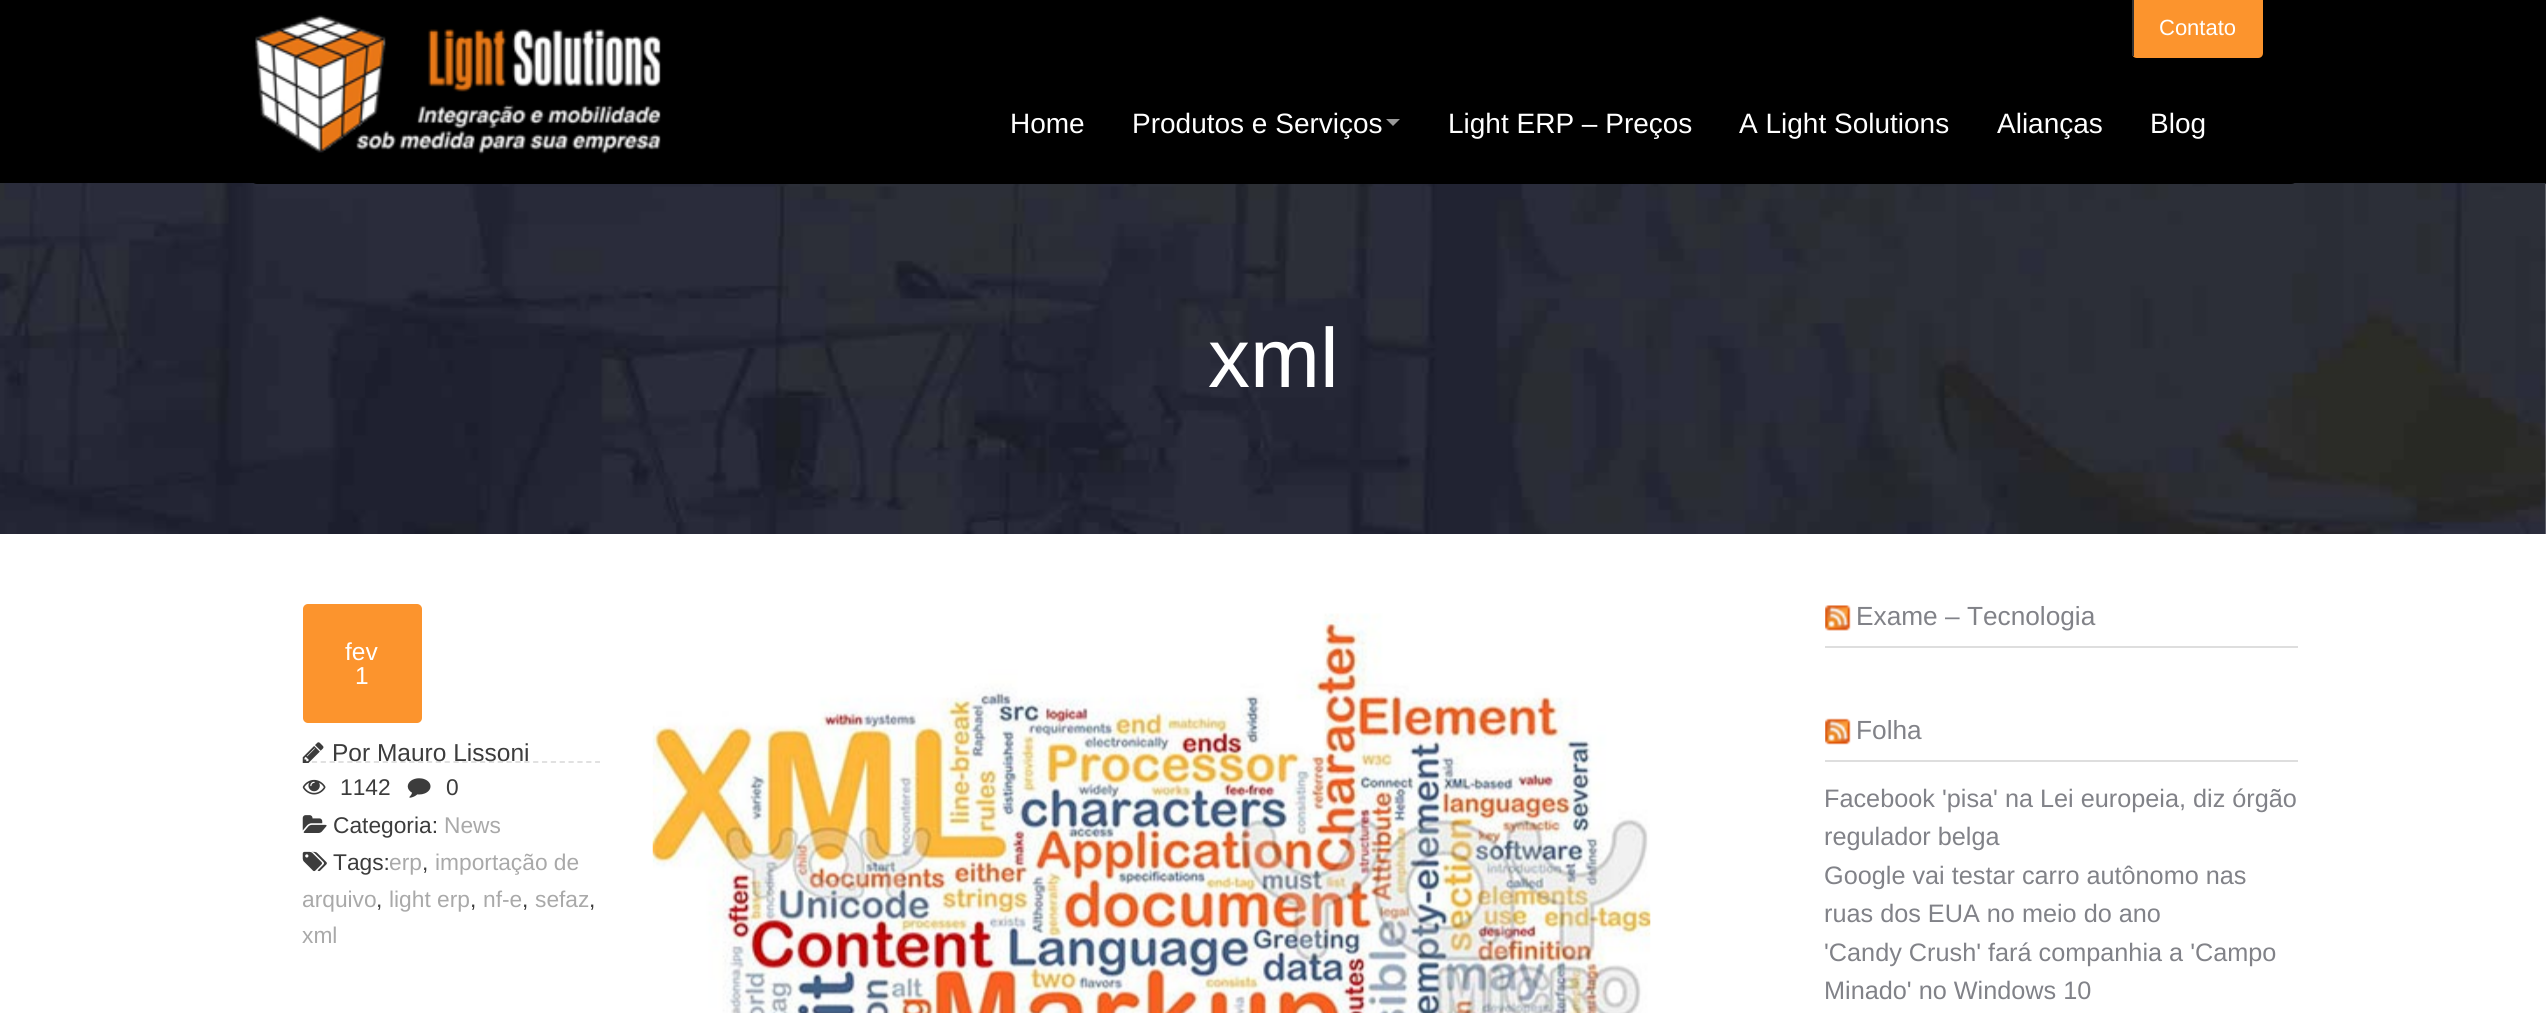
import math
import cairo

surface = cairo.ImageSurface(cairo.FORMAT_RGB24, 2546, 1013)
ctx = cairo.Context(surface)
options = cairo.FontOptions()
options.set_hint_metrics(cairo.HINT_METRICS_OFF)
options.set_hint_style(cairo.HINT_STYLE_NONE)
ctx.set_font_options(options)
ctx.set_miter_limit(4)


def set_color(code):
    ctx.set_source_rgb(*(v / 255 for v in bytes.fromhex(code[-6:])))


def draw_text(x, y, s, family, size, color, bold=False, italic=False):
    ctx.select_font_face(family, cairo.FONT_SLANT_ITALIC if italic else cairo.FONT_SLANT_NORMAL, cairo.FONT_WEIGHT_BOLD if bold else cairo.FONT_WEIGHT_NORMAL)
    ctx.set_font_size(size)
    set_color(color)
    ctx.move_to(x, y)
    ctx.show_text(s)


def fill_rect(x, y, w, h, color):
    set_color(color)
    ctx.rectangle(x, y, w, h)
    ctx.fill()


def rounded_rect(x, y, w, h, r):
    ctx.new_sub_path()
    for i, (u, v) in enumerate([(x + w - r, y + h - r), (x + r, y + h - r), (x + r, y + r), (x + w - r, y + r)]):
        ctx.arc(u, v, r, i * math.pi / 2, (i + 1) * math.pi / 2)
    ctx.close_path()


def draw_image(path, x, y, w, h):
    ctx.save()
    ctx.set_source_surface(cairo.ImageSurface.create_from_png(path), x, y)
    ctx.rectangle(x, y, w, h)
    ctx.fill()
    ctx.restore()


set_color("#ffffff")
ctx.paint()
fill_rect(0, 0, 2546, 184, "#000000")
draw_image("assets/img2.png", 0, 183, 2546, 351)
rounded_rect(250, 0, 2048, 184, 7)
ctx.fill()
draw_image("assets/img1.png", 255, 15, 406, 140)
set_color("#fc942d")
ctx.new_path()
ctx.move_to(2132, 0)
ctx.line_to(2263, 0)
ctx.line_to(2263, 53)
ctx.curve_to(2263, 56, 2261, 58, 2258, 58)
ctx.line_to(2137, 58)
ctx.curve_to(2134, 58, 2132, 56, 2132, 53)
ctx.close_path()
ctx.fill()
fill_rect(2132, 0, 2, 56, "#333333")
draw_text(2159, 35, "Contato", "Liberation Sans", 22, "#ffffff")
draw_text(1010, 133, "Home", "Liberation Sans", 28, "#ffffff")
draw_text(1132, 133, "Produtos e Serviços", "Liberation Sans", 28, "#ffffff")
set_color("#999999")
ctx.new_path()
ctx.move_to(1386, 119)
ctx.line_to(1400, 119)
ctx.line_to(1393, 126)
ctx.close_path()
ctx.fill()
draw_text(1448, 133, "Light ERP – Preços", "Liberation Sans", 28, "#ffffff")
draw_text(1739, 133, "A Light Solutions", "Liberation Sans", 28, "#ffffff")
draw_text(1997, 133, "Alianças", "Liberation Sans", 28, "#ffffff")
draw_text(2150, 133, "Blog", "Liberation Sans", 28, "#ffffff")
draw_text(1208, 387, "xml", "Liberation Sans", 84, "#ffffff")
ctx.new_path()
ctx.move_to(303, 762)
ctx.line_to(600, 762)
set_color("#dedede")
ctx.set_line_width(1.8)
ctx.set_dash([5.25, 3.6])
ctx.stroke()
set_color("#fc942d")
rounded_rect(303, 604, 119, 119, 5)
ctx.fill()
draw_text(345, 660, "fev", "Liberation Sans", 24.5, "#ffffff")
draw_text(355, 684, "1", "Liberation Sans", 24.5, "#ffffff")
draw_image("assets/img3.png", 302, 742, 22, 21)
draw_text(332, 761, "Por Mauro Lissoni", "Liberation Sans", 24.5, "#3c3c3c")
draw_image("assets/img4.png", 302, 779, 24, 16)
draw_text(340, 795, "1142", "Liberation Sans", 22.75, "#3c3c3c")
draw_image("assets/img5.png", 407, 778, 24, 20)
draw_text(446, 795, "0", "Liberation Sans", 22.75, "#3c3c3c")
draw_image("assets/img6.png", 302, 815, 25, 18)
draw_text(333, 833, "Categoria:", "Liberation Sans", 22.75, "#3c3c3c")
draw_text(444, 833, "News", "Liberation Sans", 22.75, "#a9a9a9")
draw_image("assets/img7.png", 302, 851, 25, 21)
draw_text(333, 870, "Tags:", "Liberation Sans", 22.75, "#3c3c3c")
draw_text(389, 870, "erp", "Liberation Sans", 22.75, "#a9a9a9")
draw_text(422, 870, ",", "Liberation Sans", 22.75, "#3c3c3c")
draw_text(435, 870, "importação de", "Liberation Sans", 22.75, "#a9a9a9")
draw_text(302, 907, "arquivo", "Liberation Sans", 22.75, "#a9a9a9")
draw_text(376, 907, ",", "Liberation Sans", 22.75, "#3c3c3c")
draw_text(389, 907, "light erp", "Liberation Sans", 22.75, "#a9a9a9")
draw_text(470, 907, ",", "Liberation Sans", 22.75, "#3c3c3c")
draw_text(483, 907, "nf-e", "Liberation Sans", 22.75, "#a9a9a9")
draw_text(522, 907, ",", "Liberation Sans", 22.75, "#3c3c3c")
draw_text(535, 907, "sefaz", "Liberation Sans", 22.75, "#a9a9a9")
draw_text(589, 907, ",", "Liberation Sans", 22.75, "#3c3c3c")
draw_text(302, 943, "xml", "Liberation Sans", 22.75, "#a9a9a9")
draw_image("assets/img8.png", 652, 613, 999, 400)
fill_rect(1825, 646, 473, 2, "#dedede")
draw_image("assets/img9.png", 1825, 605, 26, 26)
draw_text(1856, 625, "Exame – Tecnologia", "Liberation Sans", 26.25, "#818288")
fill_rect(1825, 760, 473, 2, "#dedede")
draw_image("assets/img10.png", 1825, 718, 26, 27)
draw_text(1856, 739, "Folha", "Liberation Sans", 26.25, "#818288")
draw_text(1824, 807, "Facebook 'pisa' na Lei europeia, diz órgão", "Liberation Sans", 25.25, "#818288")
draw_text(1824, 845, "regulador belga", "Liberation Sans", 25.25, "#818288")
draw_text(1824, 884, "Google vai testar carro autônomo nas", "Liberation Sans", 25.25, "#818288")
draw_text(1824, 922, "ruas dos EUA no meio do ano", "Liberation Sans", 25.25, "#818288")
draw_text(1824, 961, "'Candy Crush' fará companhia a 'Campo", "Liberation Sans", 25.25, "#818288")
draw_text(1824, 999, "Minado' no Windows 10", "Liberation Sans", 25.25, "#818288")
surface.write_to_png("output.png")
